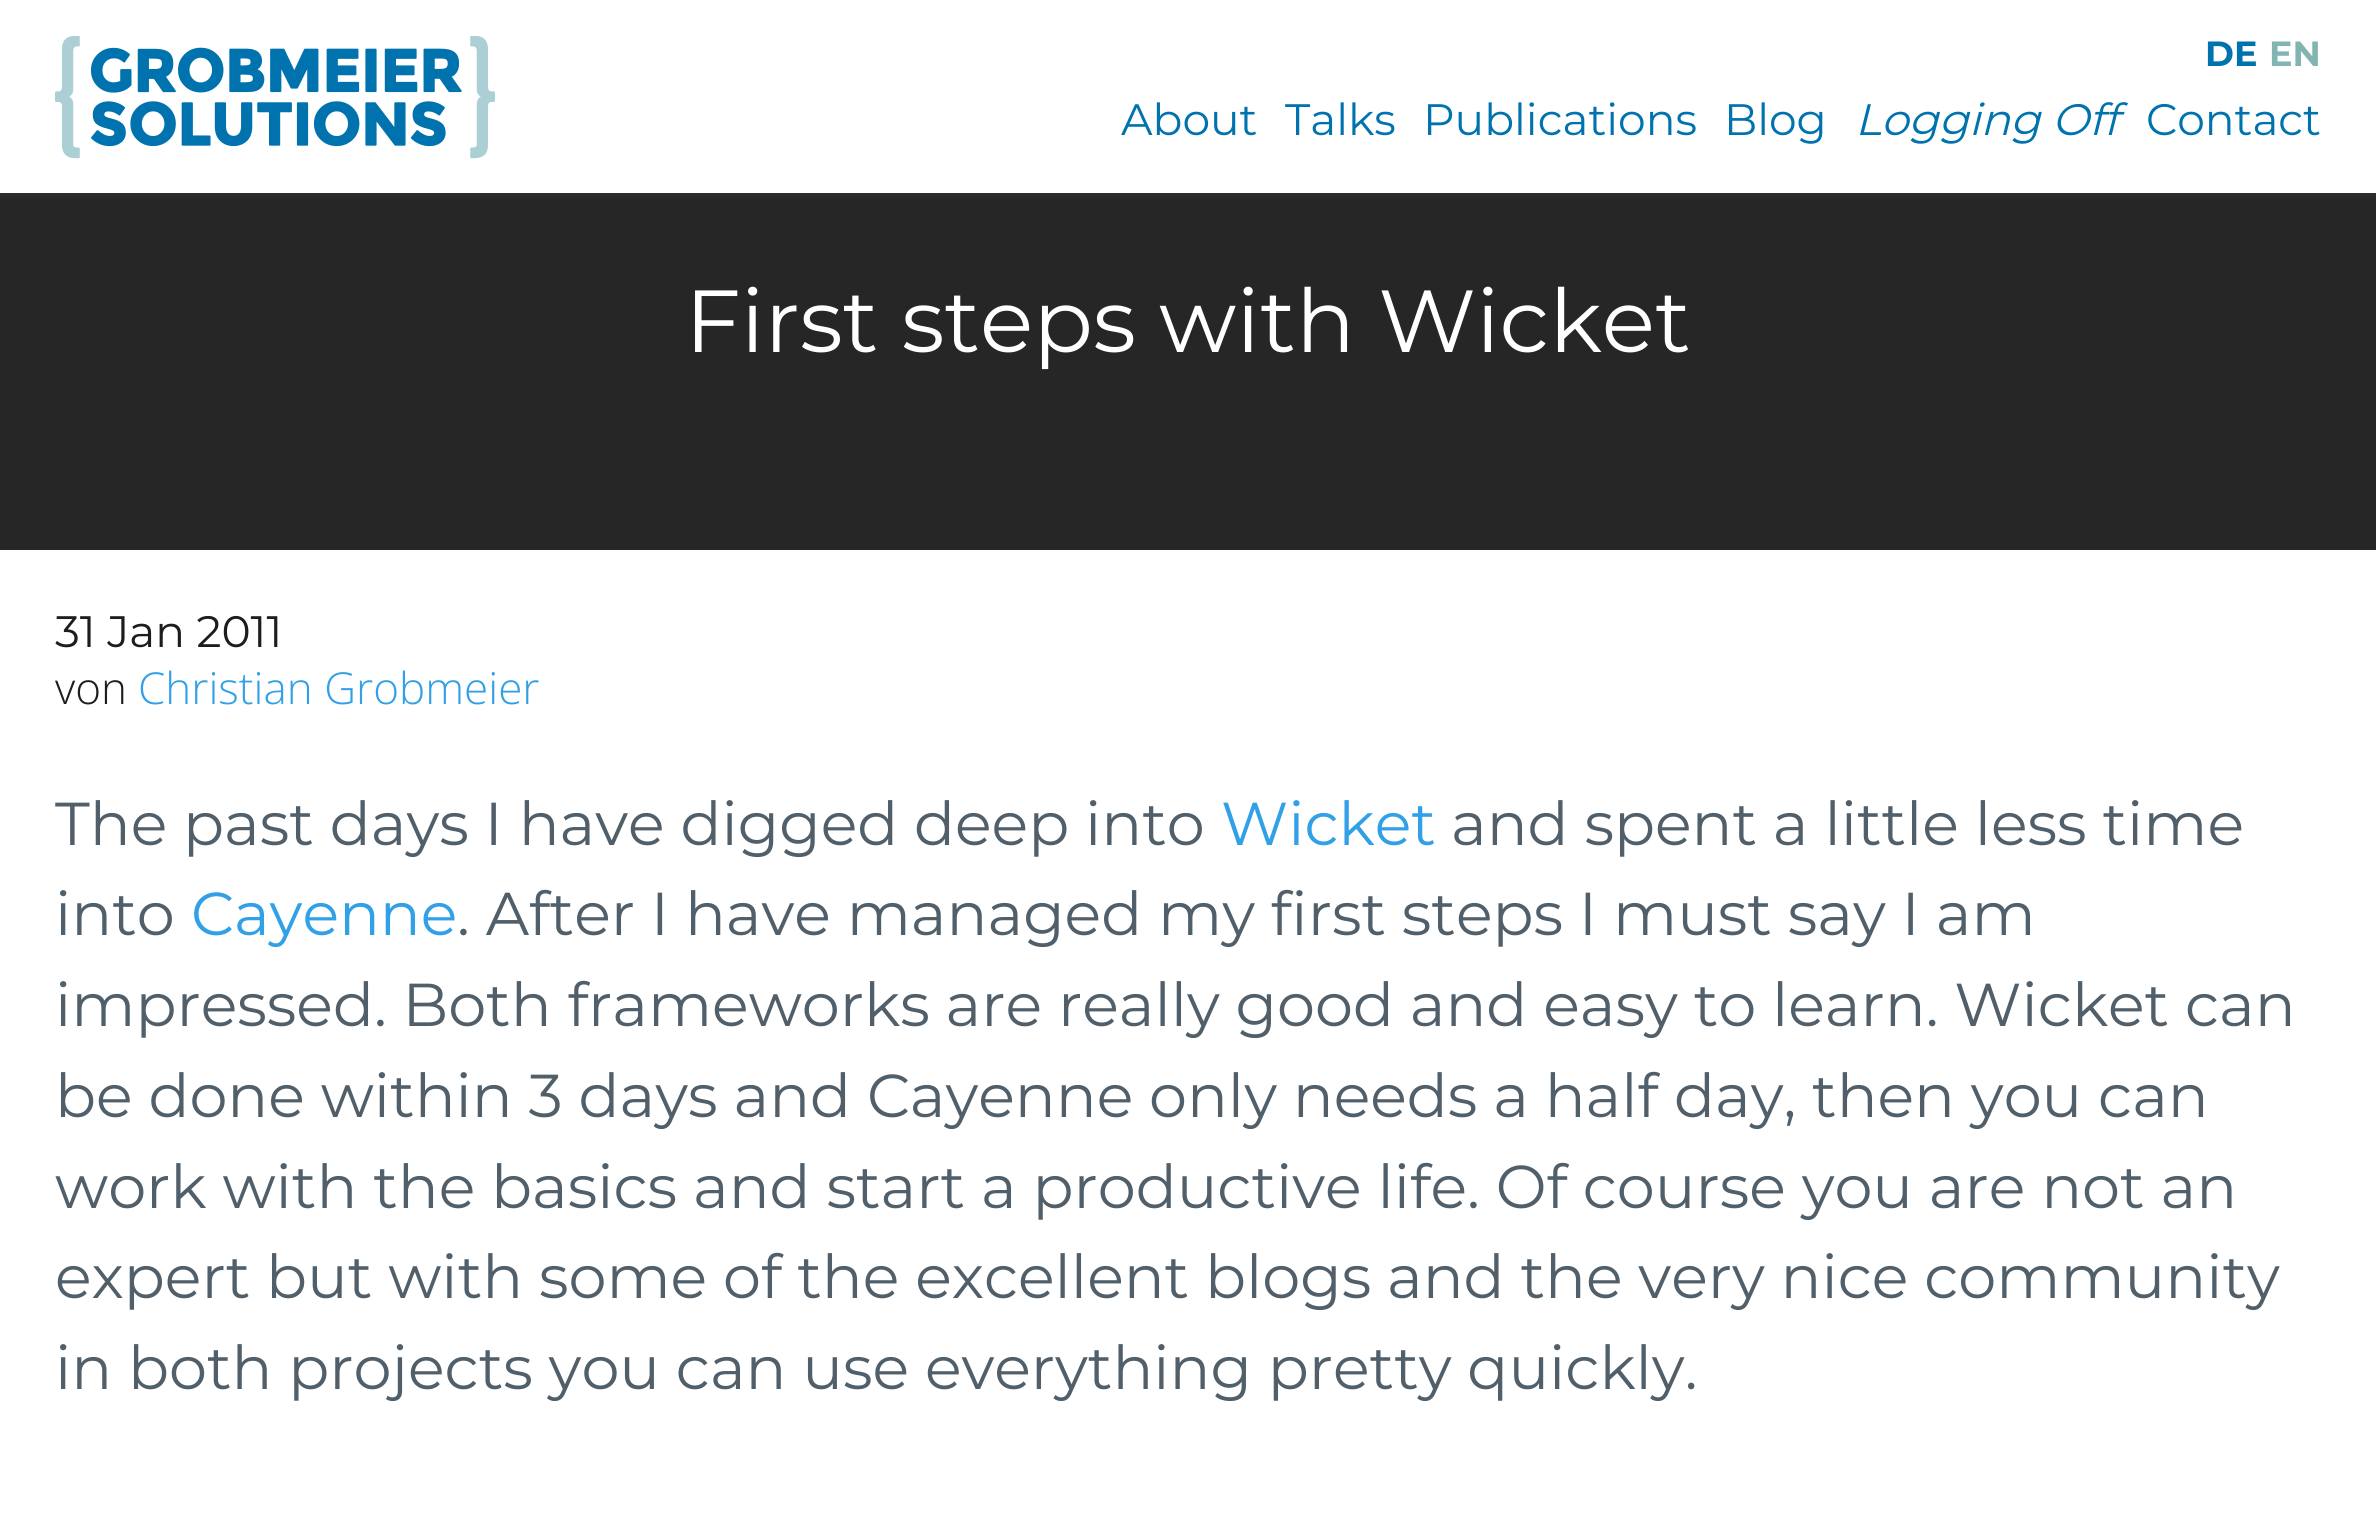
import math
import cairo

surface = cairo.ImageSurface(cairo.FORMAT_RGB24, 2376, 1518)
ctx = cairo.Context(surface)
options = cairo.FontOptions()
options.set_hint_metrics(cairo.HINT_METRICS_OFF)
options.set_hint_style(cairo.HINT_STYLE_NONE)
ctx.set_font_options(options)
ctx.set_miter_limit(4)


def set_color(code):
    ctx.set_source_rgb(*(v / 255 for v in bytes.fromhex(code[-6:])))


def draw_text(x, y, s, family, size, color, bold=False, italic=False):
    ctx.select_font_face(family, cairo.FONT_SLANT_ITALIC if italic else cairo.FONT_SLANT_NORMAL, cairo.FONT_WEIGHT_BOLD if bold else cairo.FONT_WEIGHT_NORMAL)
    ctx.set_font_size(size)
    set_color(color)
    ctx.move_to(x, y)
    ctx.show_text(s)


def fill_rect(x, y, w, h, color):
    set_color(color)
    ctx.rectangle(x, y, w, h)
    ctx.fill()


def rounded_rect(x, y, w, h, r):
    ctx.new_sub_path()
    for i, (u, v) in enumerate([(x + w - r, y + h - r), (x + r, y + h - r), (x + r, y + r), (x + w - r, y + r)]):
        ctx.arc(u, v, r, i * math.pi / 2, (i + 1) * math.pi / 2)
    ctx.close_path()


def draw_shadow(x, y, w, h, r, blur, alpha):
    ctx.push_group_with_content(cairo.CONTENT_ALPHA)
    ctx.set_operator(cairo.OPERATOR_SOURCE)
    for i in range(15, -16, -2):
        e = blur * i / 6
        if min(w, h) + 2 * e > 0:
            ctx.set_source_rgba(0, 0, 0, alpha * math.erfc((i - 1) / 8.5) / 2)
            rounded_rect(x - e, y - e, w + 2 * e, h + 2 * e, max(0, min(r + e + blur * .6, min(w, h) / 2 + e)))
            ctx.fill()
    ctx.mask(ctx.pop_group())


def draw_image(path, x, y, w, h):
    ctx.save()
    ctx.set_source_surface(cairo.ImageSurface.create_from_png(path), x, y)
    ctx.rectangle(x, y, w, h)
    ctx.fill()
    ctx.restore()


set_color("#ffffff")
ctx.paint()
fill_rect(0, 193, 2376, 357, "#262626")
set_color("#646464")
draw_shadow(0, 3, 2376, 192, 0, 4, 0.2)
fill_rect(0, 0, 2376, 193, "#ffffff")
draw_image("assets/img1.png", 55, 36, 440, 123)
draw_text(2205, 66, "DE", "Montserrat", 35, "#0073af", bold=True)
draw_text(2269, 66, "EN", "Montserrat", 35, "#82b4b2", bold=True)
draw_text(1121, 135, "About", "Montserrat", 44, "#0073af")
draw_text(1285, 135, "Talks", "Montserrat", 44, "#0073af")
draw_text(1423, 135, "Publications", "Montserrat", 44, "#0073af")
draw_text(1724, 135, "Blog", "Montserrat", 44, "#0073af")
draw_text(1855, 135, "Logging Off", "Montserrat", 44, "#0073af", italic=True)
draw_text(2146, 135, "Contact", "Montserrat", 44, "#0073af")
draw_text(685, 352, "First steps with Wicket", "Montserrat", 88, "#ffffff")
draw_text(55, 647, "31 Jan 2011", "Montserrat", 44, "#1d1d1b")
draw_text(55, 704, "von", "Open Sans Light", 44, "#1d1d1b")
draw_text(138, 704, "Christian Grobmeier", "Open Sans Light", 44, "#32a0e6")
draw_text(55, 845, "The past days I have digged deep into", "Montserrat", 60.5, "#505f69")
draw_text(1221, 845, "Wicket", "Montserrat", 60.5, "#32a0e6")
draw_text(1451, 845, "and spent a little less time", "Montserrat", 60.5, "#505f69")
draw_text(55, 935, "into", "Montserrat", 60.5, "#505f69")
draw_text(191, 935, "Cayenne", "Montserrat", 60.5, "#32a0e6")
draw_text(457, 935, ". After I have managed my first steps I must say I am", "Montserrat", 60.5, "#505f69")
draw_text(55, 1026, "impressed. Both frameworks are really good and easy to learn. Wicket can", "Montserrat", 60.5, "#505f69")
draw_text(55, 1117, "be done within 3 days and Cayenne only needs a half day, then you can", "Montserrat", 60.5, "#505f69")
draw_text(55, 1208, "work with the basics and start a productive life. Of course you are not an", "Montserrat", 60.5, "#505f69")
draw_text(55, 1298, "expert but with some of the excellent blogs and the very nice community", "Montserrat", 60.5, "#505f69")
draw_text(55, 1389, "in both projects you can use everything pretty quickly.", "Montserrat", 60.5, "#505f69")
surface.write_to_png("output.png")
